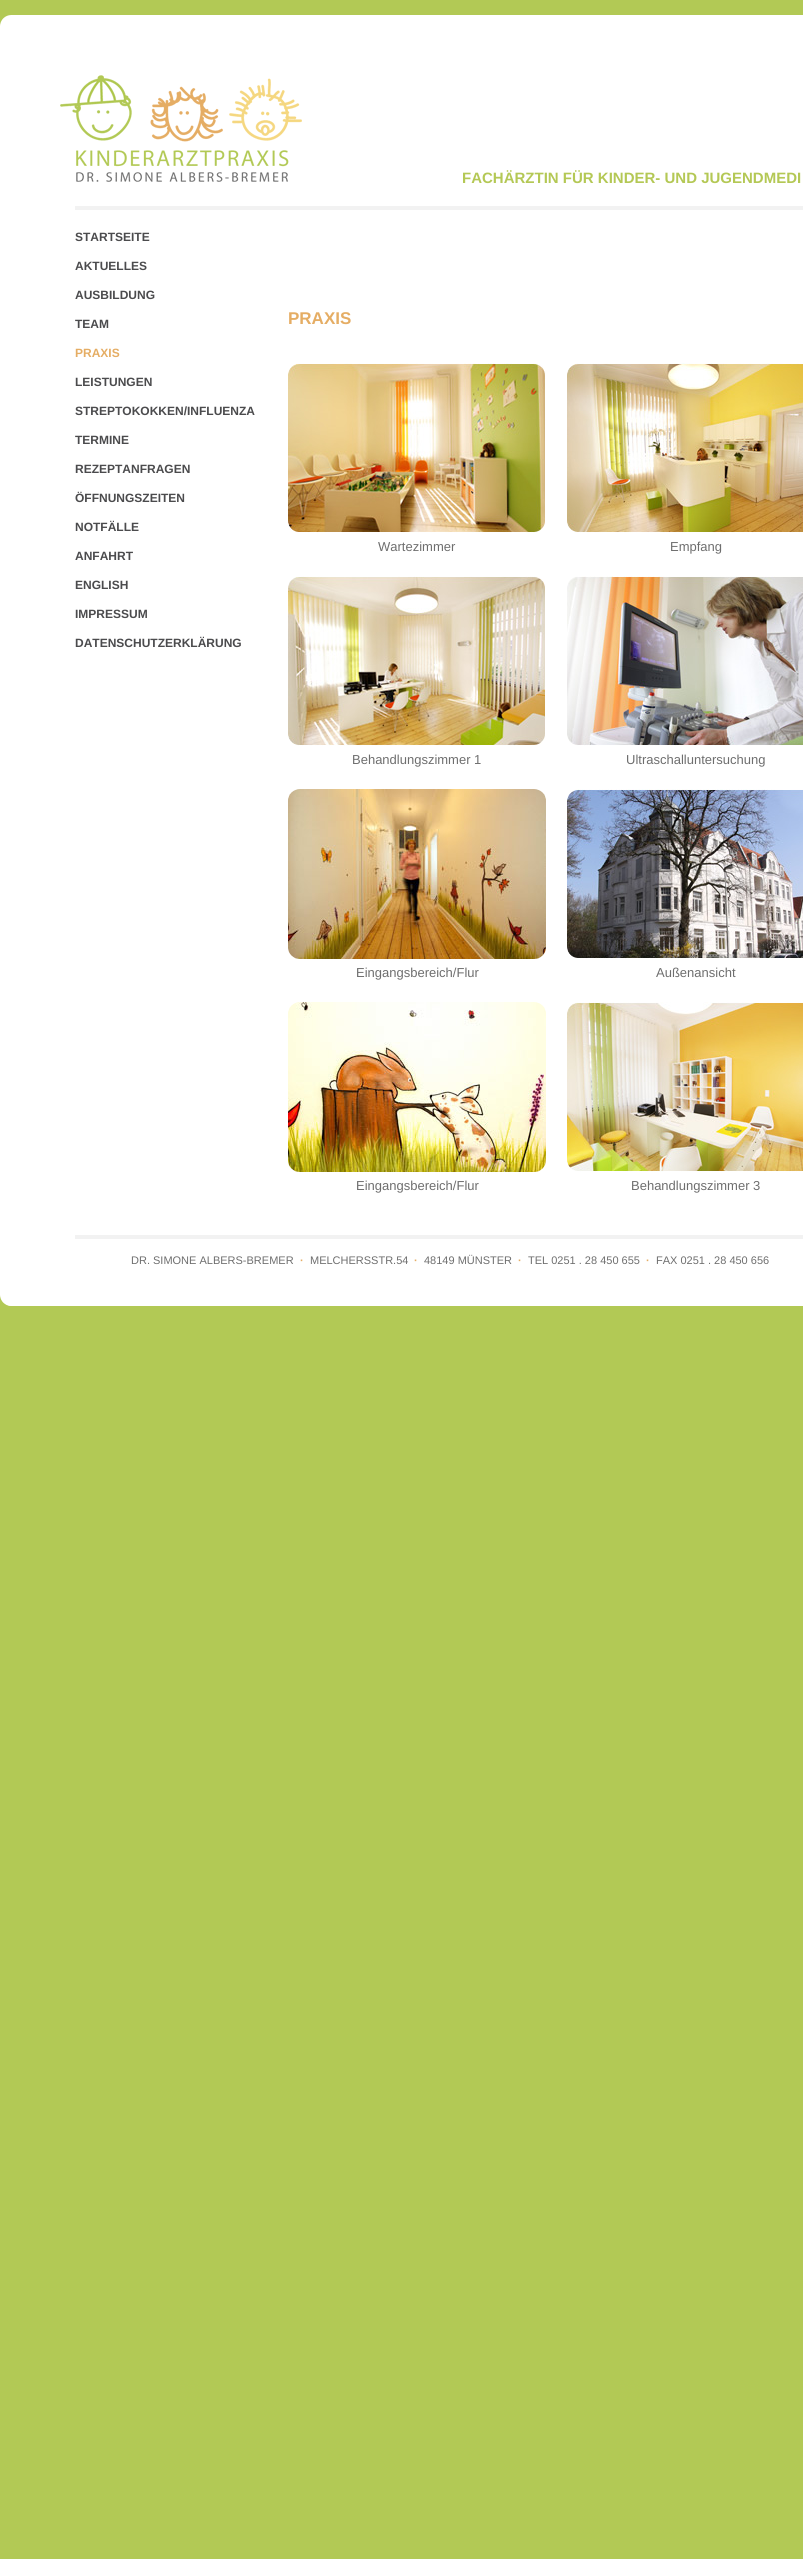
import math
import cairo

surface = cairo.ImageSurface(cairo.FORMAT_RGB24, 803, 2559)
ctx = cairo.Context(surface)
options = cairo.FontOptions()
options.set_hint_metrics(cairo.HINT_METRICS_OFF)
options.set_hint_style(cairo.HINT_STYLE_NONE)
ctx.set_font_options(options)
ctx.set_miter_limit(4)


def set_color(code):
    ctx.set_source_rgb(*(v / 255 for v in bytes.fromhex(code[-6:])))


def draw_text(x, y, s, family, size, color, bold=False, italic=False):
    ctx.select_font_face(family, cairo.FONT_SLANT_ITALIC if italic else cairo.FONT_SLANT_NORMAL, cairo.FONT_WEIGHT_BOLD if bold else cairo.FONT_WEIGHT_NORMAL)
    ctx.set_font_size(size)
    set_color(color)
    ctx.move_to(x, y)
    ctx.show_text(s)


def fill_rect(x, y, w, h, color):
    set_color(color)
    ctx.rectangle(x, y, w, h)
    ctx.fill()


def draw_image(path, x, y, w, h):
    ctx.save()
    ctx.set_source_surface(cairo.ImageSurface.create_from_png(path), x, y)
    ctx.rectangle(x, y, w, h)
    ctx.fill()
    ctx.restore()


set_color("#b2c955")
ctx.paint()
fill_rect(0, 35, 803, 1251, "#ffffff")
draw_image("assets/img1.png", 0, 15, 803, 20)
fill_rect(75, 206, 728, 4, "#f2f2f2")
draw_image("assets/img2.png", 60, 75, 242, 107)
draw_text(462, 183, "FACHÄRZTIN FÜR KINDER- UND JUGENDMEDI", "Liberation Sans", 15, "#b4c855", bold=True)
draw_text(75, 241, "STARTSEITE", "Liberation Sans", 12, "#4b4b4d", bold=True)
draw_text(75, 270, "AKTUELLES", "Liberation Sans", 12, "#4b4b4d", bold=True)
draw_text(75, 299, "AUSBILDUNG", "Liberation Sans", 12, "#4b4b4d", bold=True)
draw_text(75, 328, "TEAM", "Liberation Sans", 12, "#4b4b4d", bold=True)
draw_text(75, 357, "PRAXIS", "Liberation Sans", 12, "#e5ad64", bold=True)
draw_text(75, 386, "LEISTUNGEN", "Liberation Sans", 12, "#4b4b4d", bold=True)
draw_text(75, 415, "STREPTOKOKKEN/INFLUENZA", "Liberation Sans", 12, "#4b4b4d", bold=True)
draw_text(75, 444, "TERMINE", "Liberation Sans", 12, "#4b4b4d", bold=True)
draw_text(75, 473, "REZEPTANFRAGEN", "Liberation Sans", 12, "#4b4b4d", bold=True)
draw_text(75, 502, "ÖFFNUNGSZEITEN", "Liberation Sans", 12, "#4b4b4d", bold=True)
draw_text(75, 531, "NOTFÄLLE", "Liberation Sans", 12, "#4b4b4d", bold=True)
draw_text(75, 560, "ANFAHRT", "Liberation Sans", 12, "#4b4b4d", bold=True)
draw_text(75, 589, "ENGLISH", "Liberation Sans", 12, "#4b4b4d", bold=True)
draw_text(75, 618, "IMPRESSUM", "Liberation Sans", 12, "#4b4b4d", bold=True)
draw_text(75, 647, "DATENSCHUTZERKLÄRUNG", "Liberation Sans", 12, "#4b4b4d", bold=True)
draw_text(288, 324, "PRAXIS", "Liberation Sans", 17, "#e5ad64", bold=True)
draw_image("assets/img3.png", 288, 363, 258, 170)
draw_text(378, 551, "Wartezimmer", "Liberation Sans", 13, "#6e6e6e")
draw_image("assets/img4.png", 567, 363, 236, 170)
draw_text(670, 551, "Empfang", "Liberation Sans", 13, "#6e6e6e")
draw_image("assets/img5.png", 288, 576, 258, 170)
draw_text(352, 764, "Behandlungszimmer 1", "Liberation Sans", 13, "#6e6e6e")
draw_image("assets/img6.png", 567, 576, 236, 170)
draw_text(626, 764, "Ultraschalluntersuchung", "Liberation Sans", 13, "#6e6e6e")
draw_image("assets/img7.png", 288, 789, 258, 170)
draw_text(356, 977, "Eingangsbereich/Flur", "Liberation Sans", 13, "#6e6e6e")
draw_image("assets/img8.png", 567, 789, 236, 170)
draw_text(656, 977, "Außenansicht", "Liberation Sans", 13, "#6e6e6e")
draw_image("assets/img9.png", 288, 1002, 258, 170)
draw_text(356, 1190, "Eingangsbereich/Flur", "Liberation Sans", 13, "#6e6e6e")
draw_image("assets/img10.png", 567, 1002, 236, 170)
draw_text(631, 1190, "Behandlungszimmer 3", "Liberation Sans", 13, "#6e6e6e")
fill_rect(75, 1235, 728, 4, "#f2f2f2")
draw_text(131, 1264, "DR. SIMONE ALBERS-BREMER", "Liberation Sans", 11, "#6e6e6e")
draw_text(300, 1264, "·", "Liberation Sans", 11, "#e5ad64", bold=True)
draw_text(310, 1264, "MELCHERSSTR.54", "Liberation Sans", 11, "#6e6e6e")
draw_text(414, 1264, "·", "Liberation Sans", 11, "#e5ad64", bold=True)
draw_text(424, 1264, "48149 MÜNSTER", "Liberation Sans", 11, "#6e6e6e")
draw_text(518, 1264, "·", "Liberation Sans", 11, "#e5ad64", bold=True)
draw_text(528, 1264, "TEL 0251 . 28 450 655", "Liberation Sans", 11, "#6e6e6e")
draw_text(646, 1264, "·", "Liberation Sans", 11, "#e5ad64", bold=True)
draw_text(656, 1264, "FAX 0251 . 28 450 656", "Liberation Sans", 11, "#6e6e6e")
draw_image("assets/img11.png", 0, 1286, 803, 20)
surface.write_to_png("output.png")
